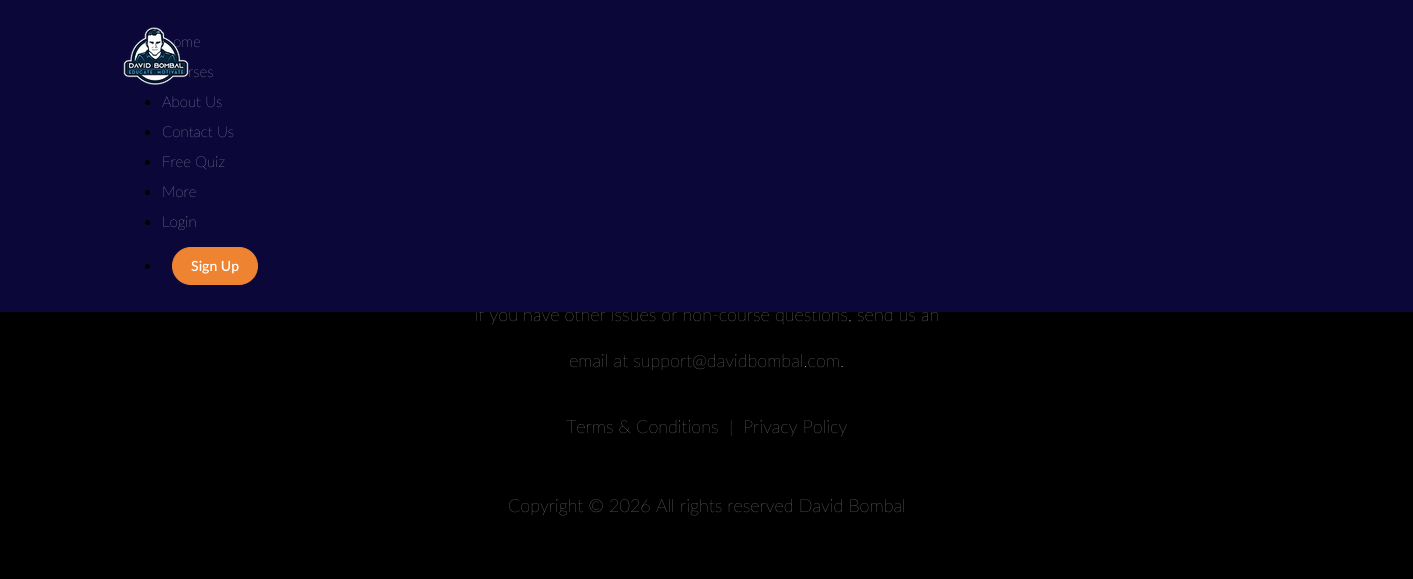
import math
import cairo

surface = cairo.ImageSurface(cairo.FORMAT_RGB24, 1413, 579)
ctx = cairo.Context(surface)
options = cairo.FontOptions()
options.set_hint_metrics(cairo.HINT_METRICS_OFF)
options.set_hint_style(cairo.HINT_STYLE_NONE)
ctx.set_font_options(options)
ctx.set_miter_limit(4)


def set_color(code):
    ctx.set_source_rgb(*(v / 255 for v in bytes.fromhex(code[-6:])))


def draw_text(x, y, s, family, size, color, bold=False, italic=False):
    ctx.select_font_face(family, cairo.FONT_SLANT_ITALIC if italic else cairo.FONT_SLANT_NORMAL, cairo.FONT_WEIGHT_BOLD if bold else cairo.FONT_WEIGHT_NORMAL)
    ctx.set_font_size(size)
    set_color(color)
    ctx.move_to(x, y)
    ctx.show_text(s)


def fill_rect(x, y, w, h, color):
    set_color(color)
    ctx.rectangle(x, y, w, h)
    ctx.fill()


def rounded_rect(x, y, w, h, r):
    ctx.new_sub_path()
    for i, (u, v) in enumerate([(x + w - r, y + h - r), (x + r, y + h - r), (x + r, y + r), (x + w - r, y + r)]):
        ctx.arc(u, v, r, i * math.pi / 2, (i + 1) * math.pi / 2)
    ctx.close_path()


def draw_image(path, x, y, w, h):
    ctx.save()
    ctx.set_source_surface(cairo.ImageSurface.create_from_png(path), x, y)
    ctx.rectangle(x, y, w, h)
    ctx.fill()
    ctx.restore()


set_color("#000000")
ctx.paint()
draw_text(474, 321, "If you have other issues or non-course questions, send us an", "Lato ExtraLight", 18, "#bac1c7")
fill_rect(0, 0, 1413, 312, "#0b0839")
draw_text(173, 47, "ome", "Lato ExtraLight", 15, "#ffffff")
draw_image("assets/img1.png", 123, 27, 66, 58)
draw_text(188, 77, "rses", "Lato ExtraLight", 15, "#ffffff")
set_color("#000000")
ctx.new_path()
ctx.arc(147.5, 102.5, 2.5, 0, 2 * math.pi)
ctx.fill()
draw_text(162, 107, "About Us", "Lato ExtraLight", 15, "#ffffff")
set_color("#000000")
ctx.new_path()
ctx.arc(147.5, 132.5, 2.5, 0, 2 * math.pi)
ctx.fill()
draw_text(162, 137, "Contact Us", "Lato ExtraLight", 15, "#ffffff")
set_color("#000000")
ctx.new_path()
ctx.arc(147.5, 162.5, 2.5, 0, 2 * math.pi)
ctx.fill()
draw_text(162, 167, "Free Quiz", "Lato ExtraLight", 15, "#ffffff")
set_color("#000000")
ctx.new_path()
ctx.arc(147.5, 192.5, 2.5, 0, 2 * math.pi)
ctx.fill()
draw_text(162, 197, "More", "Lato ExtraLight", 15, "#ffffff")
set_color("#000000")
ctx.new_path()
ctx.arc(147.5, 222.5, 2.5, 0, 2 * math.pi)
ctx.fill()
draw_text(162, 227, "Login", "Lato ExtraLight", 15, "#ffffff")
set_color("#000000")
ctx.new_path()
ctx.arc(147.5, 266.5, 2.5, 0, 2 * math.pi)
ctx.fill()
set_color("#ee8331")
rounded_rect(172.5, 247.5, 85, 37, 18.5)
ctx.fill_preserve()
ctx.set_line_width(1)
ctx.stroke()
draw_text(191, 271, "Sign Up", "Lato SemiBold", 14, "#ffffff")
draw_text(569, 367, "email at support@davidbombal.com.", "Lato ExtraLight", 18, "#bac1c7")
draw_text(566, 433, "Terms & Conditions", "Lato ExtraLight", 18, "#bac1c7")
draw_text(729, 433, "|", "Lato ExtraLight", 18, "#bac1c7")
draw_text(743, 433, "Privacy Policy", "Lato ExtraLight", 18, "#bac1c7")
draw_text(508, 512, "Copyright © 2026 All rights reserved David Bombal", "Lato ExtraLight", 18, "#bac1c7")
surface.write_to_png("output.png")
